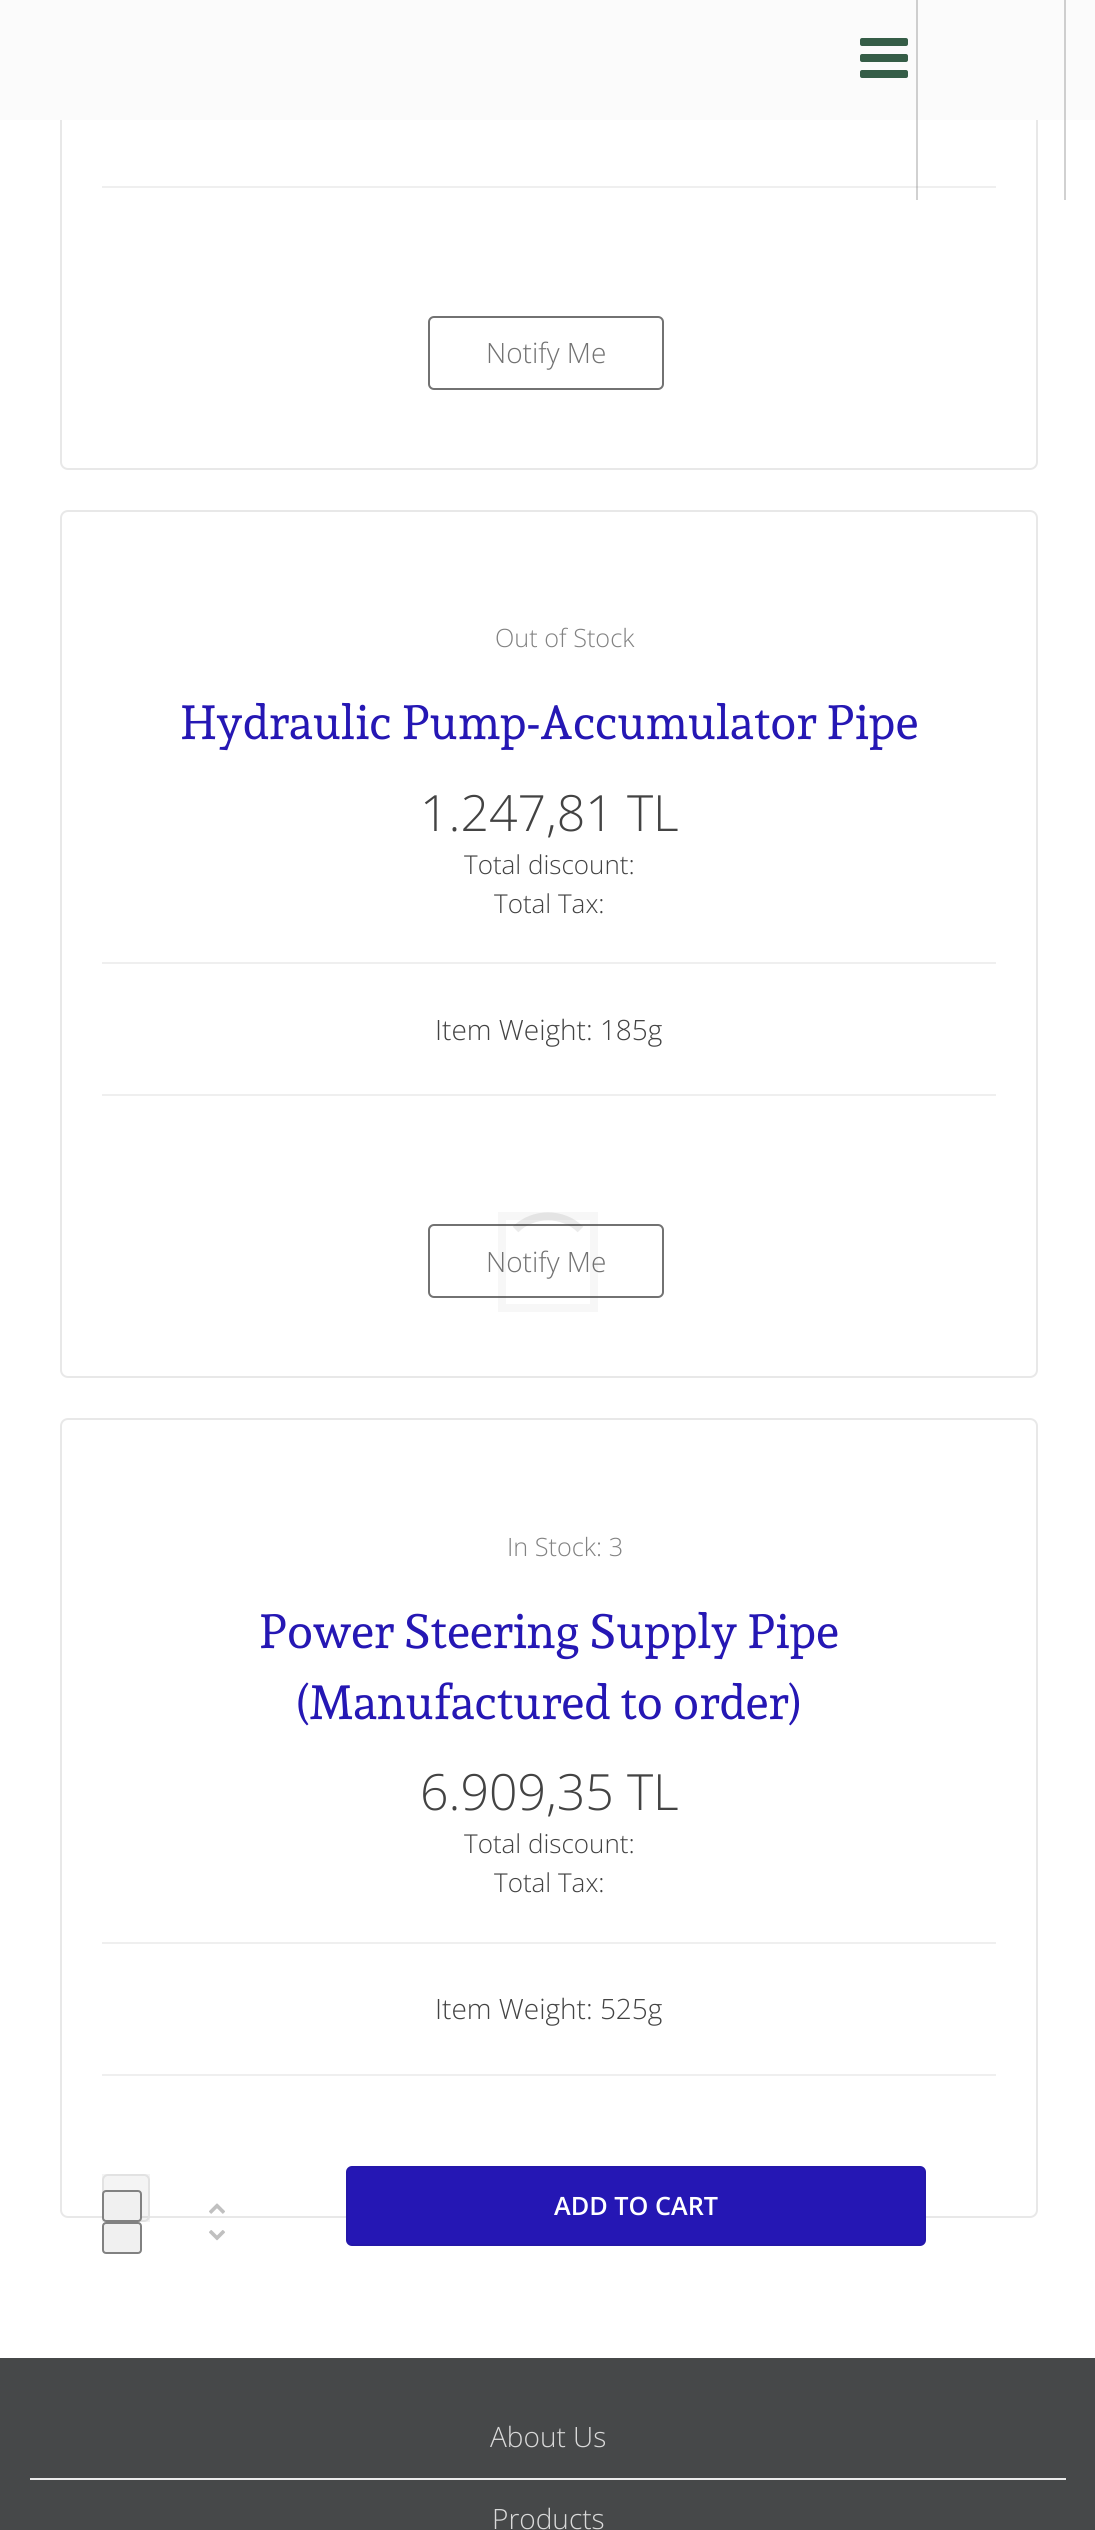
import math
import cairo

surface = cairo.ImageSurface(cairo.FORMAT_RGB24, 1095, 2530)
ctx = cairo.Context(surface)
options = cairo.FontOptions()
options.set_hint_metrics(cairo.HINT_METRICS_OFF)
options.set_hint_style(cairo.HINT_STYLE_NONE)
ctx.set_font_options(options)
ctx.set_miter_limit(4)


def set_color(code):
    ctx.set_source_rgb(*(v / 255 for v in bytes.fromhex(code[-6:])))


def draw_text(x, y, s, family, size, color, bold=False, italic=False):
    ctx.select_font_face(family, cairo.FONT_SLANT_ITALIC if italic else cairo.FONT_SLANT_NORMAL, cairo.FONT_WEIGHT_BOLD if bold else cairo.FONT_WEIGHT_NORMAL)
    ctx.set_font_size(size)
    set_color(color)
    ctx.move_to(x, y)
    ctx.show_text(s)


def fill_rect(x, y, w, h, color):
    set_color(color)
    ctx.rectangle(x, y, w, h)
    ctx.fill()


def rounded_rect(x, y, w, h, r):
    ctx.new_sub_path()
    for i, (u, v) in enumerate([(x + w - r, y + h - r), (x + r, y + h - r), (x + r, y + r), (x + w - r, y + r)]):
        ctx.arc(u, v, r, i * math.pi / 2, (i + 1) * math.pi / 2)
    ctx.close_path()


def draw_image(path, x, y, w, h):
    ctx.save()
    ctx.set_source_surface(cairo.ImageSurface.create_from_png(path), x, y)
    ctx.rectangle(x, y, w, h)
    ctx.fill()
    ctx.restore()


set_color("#ffffff")
ctx.paint()
fill_rect(916, 120, 2, 80, "#d1d1d1")
fill_rect(1064, 120, 2, 80, "#d1d1d1")
rounded_rect(61, -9, 976, 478, 7)
set_color("#e8e8e8")
ctx.stroke()
fill_rect(0, 0, 1095, 120, "#fbfbfb")
fill_rect(916, 0, 2, 120, "#cecece")
fill_rect(1064, 0, 2, 120, "#cecece")
draw_image("assets/img1.png", 860, 38, 48, 40)
fill_rect(102, 186, 894, 2, "#efefef")
fill_rect(916, 186, 2, 2, "#c7c7c7")
rounded_rect(429, 317, 234, 72, 5)
set_color("#727272")
ctx.stroke()
draw_text(486, 363, "Notify Me", "Open Sans Light", 28, "#727272")
rounded_rect(61, 511, 976, 866, 7)
set_color("#e8e8e8")
ctx.stroke()
draw_text(495, 647, "Out of Stock", "Open Sans Light", 25.25, "#828282")
draw_text(180, 739, "Hydraulic Pump-Accumulator Pipe", "Sura", 47.6, "#2517b4")
draw_text(420, 831, "1.247,81 TL", "Open Sans Light", 50, "#434343")
draw_text(464, 874, "Total discount:", "Open Sans Light", 26, "#434343")
draw_text(494, 913, "Total Tax:", "Open Sans Light", 26, "#434343")
fill_rect(102, 962, 894, 2, "#efefef")
draw_text(435, 1040, "Item Weight: 185g", "Open Sans Light", 28, "#434343")
fill_rect(102, 1094, 894, 2, "#efefef")
rounded_rect(429, 1225, 234, 72, 5)
set_color("#727272")
ctx.stroke()
draw_text(486, 1272, "Notify Me", "Open Sans Light", 28, "#727272")
rounded_rect(61, 1419, 976, 798, 7)
set_color("#e8e8e8")
ctx.stroke()
draw_text(507, 1556, "In Stock: 3", "Open Sans Light", 25.25, "#828282")
draw_text(259, 1648, "Power Steering Supply Pipe", "Sura", 47.6, "#2517b4")
draw_text(296, 1719, "(Manufactured to order)", "Sura", 47.6, "#2517b4")
draw_text(420, 1810, "6.909,35 TL", "Open Sans Light", 50, "#434343")
draw_text(464, 1853, "Total discount:", "Open Sans Light", 26, "#434343")
draw_text(494, 1892, "Total Tax:", "Open Sans Light", 26, "#434343")
fill_rect(102, 1942, 894, 2, "#efefef")
draw_text(435, 2019, "Item Weight: 525g", "Open Sans Light", 28, "#434343")
fill_rect(102, 2074, 894, 2, "#efefef")
ctx.set_source_rgba(0.078, 0.078, 0.078, 0.05)
ctx.rectangle(102, 2174, 48, 48)
ctx.fill()
rounded_rect(103, 2175, 46, 46, 5)
set_color("#e2e2e2")
ctx.stroke()
set_color("#f0f0f0")
rounded_rect(103, 2191, 38, 30, 3)
ctx.fill_preserve()
set_color("#818181")
ctx.stroke()
draw_image("assets/img2.png", 209, 2203, 16, 11)
set_color("#f0f0f0")
rounded_rect(103, 2223, 38, 30, 3)
ctx.fill_preserve()
set_color("#818181")
ctx.stroke()
draw_image("assets/img3.png", 209, 2230, 16, 11)
set_color("#2517b4")
rounded_rect(347, 2167, 578, 78, 5)
ctx.fill_preserve()
set_color("#2417aa")
ctx.stroke()
draw_text(554, 2215, "ADD TO CART", "Open Sans SemiBold", 25.25, "#ffffff")
ctx.rectangle(502, 1216, 92, 92)
ctx.set_source_rgba(0.2, 0.2, 0.2, 0.04)
ctx.set_line_width(8)
ctx.stroke()
ctx.new_path()
ctx.move_to(515.5, 1229.5)
ctx.curve_to(533, 1212, 563, 1212, 580.5, 1229.5)
ctx.set_source_rgba(0.2, 0.2, 0.2, 0.1)
ctx.stroke()
fill_rect(0, 2358, 1095, 172, "#464849")
fill_rect(30, 2478, 1036, 2, "#eaeaea")
draw_text(490, 2447, "About Us", "Open Sans Light", 28, "#d9d9d9")
draw_text(492, 2529, "Products", "Open Sans Light", 28, "#d9d9d9")
surface.write_to_png("output.png")
